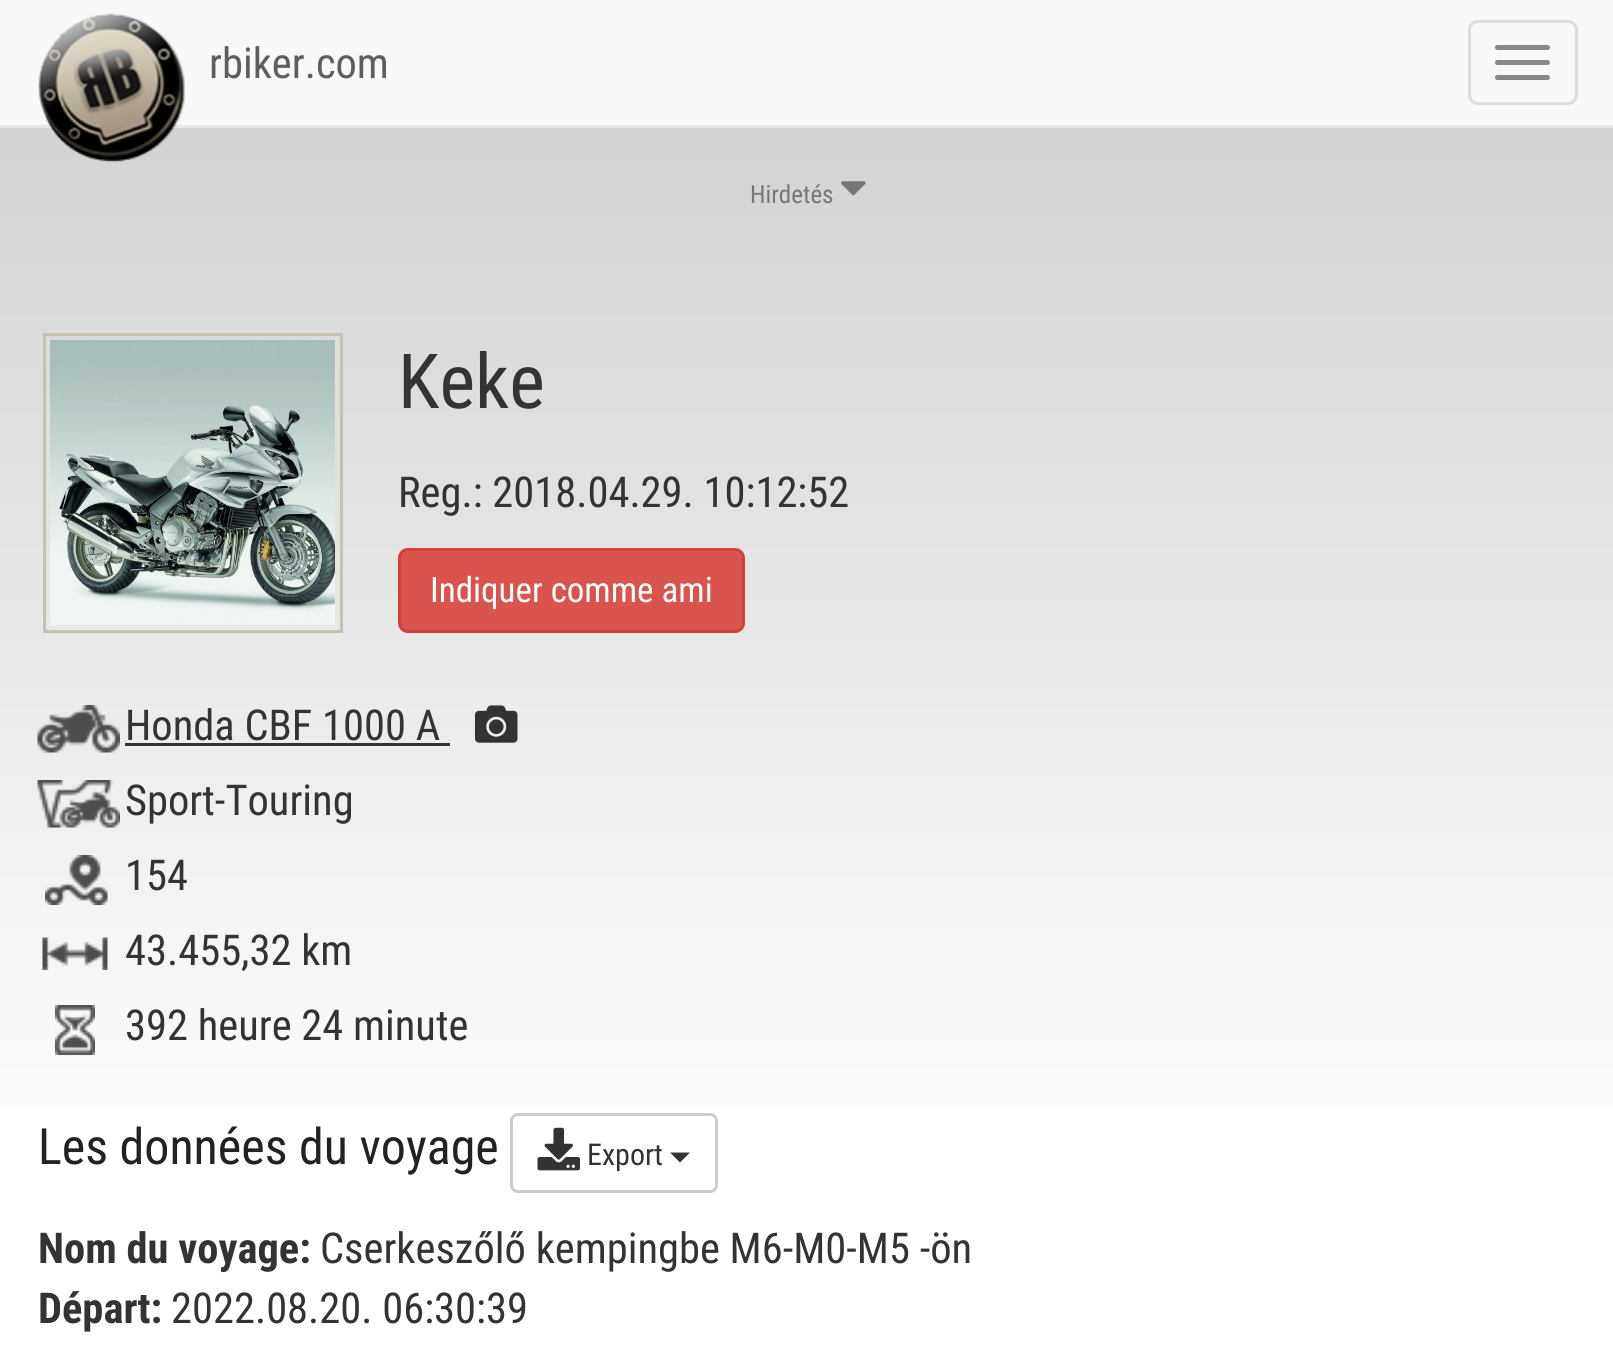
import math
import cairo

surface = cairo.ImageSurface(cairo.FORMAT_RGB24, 1613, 1358)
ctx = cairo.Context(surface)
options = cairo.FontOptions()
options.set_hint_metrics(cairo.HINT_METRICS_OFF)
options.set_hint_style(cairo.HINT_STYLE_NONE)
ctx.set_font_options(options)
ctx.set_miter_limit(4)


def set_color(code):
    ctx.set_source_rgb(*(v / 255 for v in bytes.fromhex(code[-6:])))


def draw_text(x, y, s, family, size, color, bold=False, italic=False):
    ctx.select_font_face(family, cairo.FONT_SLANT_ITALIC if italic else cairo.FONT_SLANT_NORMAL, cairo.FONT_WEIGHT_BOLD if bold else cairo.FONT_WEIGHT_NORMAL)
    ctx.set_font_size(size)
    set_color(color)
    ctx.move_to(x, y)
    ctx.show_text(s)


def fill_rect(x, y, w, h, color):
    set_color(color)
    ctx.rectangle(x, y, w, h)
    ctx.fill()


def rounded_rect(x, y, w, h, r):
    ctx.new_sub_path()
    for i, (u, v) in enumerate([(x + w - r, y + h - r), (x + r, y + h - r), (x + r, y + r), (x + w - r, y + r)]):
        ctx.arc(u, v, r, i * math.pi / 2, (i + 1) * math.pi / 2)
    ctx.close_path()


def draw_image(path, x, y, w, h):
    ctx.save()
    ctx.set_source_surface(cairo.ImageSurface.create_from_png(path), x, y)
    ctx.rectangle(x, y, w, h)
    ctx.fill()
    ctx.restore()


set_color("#ffffff")
ctx.paint()
fill_rect(0, 0, 1613, 125, "#f8f8f8")
fill_rect(0, 125, 1613, 3, "#e7e7e7")
draw_image("assets/img2.png", 0, 128, 1613, 977)
draw_image("assets/img1.png", 38, 13, 147, 149)
draw_text(209, 78, "rbiker.com", "Roboto Condensed", 42.5, "#5e5e5e")
rounded_rect(1469.5, 21.5, 107, 82, 8.5)
set_color("#dddddd")
ctx.set_line_width(3)
ctx.stroke()
set_color("#888888")
rounded_rect(1495, 45, 55, 5, 2.5)
ctx.fill()
rounded_rect(1495, 60, 55, 5, 2.5)
ctx.fill()
rounded_rect(1495, 75, 55, 5, 2.5)
ctx.fill()
draw_text(750, 203, "Hirdetés", "Roboto Condensed", 25, "#777777")
draw_image("assets/img3.png", 841, 181, 25, 15)
ctx.rectangle(44.5, 334.5, 297, 297)
set_color("#c7c1b2")
ctx.stroke()
draw_image("assets/img4.png", 50, 340, 285, 285)
draw_text(398, 408, "Keke", "Roboto Condensed", 76, "#333333")
draw_text(398, 507, "Reg.: 2018.04.29. 10:12:52", "Roboto Condensed", 42.5, "#333333")
set_color("#d9534f")
rounded_rect(399.5, 549.5, 344, 82, 8.5)
ctx.fill_preserve()
set_color("#d43f3a")
ctx.stroke()
draw_text(430, 602, "Indiquer comme ami", "Roboto Condensed", 35, "#ffffff")
draw_image("assets/img5.png", 37, 705, 83, 48)
draw_text(125, 740, "Honda CBF 1000 A", "Roboto Condensed", 42.5, "#333333")
fill_rect(125, 743, 325, 3, "#333333")
draw_image("assets/img6.png", 475, 705, 43, 38)
draw_image("assets/img7.png", 37, 780, 83, 48)
draw_text(125, 815, "Sport-Touring", "Roboto Condensed", 42.5, "#333333")
draw_image("assets/img8.png", 45, 855, 63, 50)
draw_text(125, 890, "154", "Roboto Condensed", 42.5, "#333333")
draw_image("assets/img9.png", 42, 937, 66, 33)
draw_text(125, 965, "43.455,32 km", "Roboto Condensed", 42.5, "#333333")
draw_image("assets/img10.png", 55, 1005, 40, 50)
draw_text(125, 1040, "392 heure 24 minute", "Roboto Condensed", 42.5, "#333333")
draw_text(38, 1164, "Les données du voyage", "Roboto Condensed", 50, "#222222")
rounded_rect(511.5, 1114.5, 205, 77, 6.5)
set_color("#cccccc")
ctx.stroke()
draw_image("assets/img11.png", 537, 1127, 43, 44)
draw_text(587, 1165, "Export", "Roboto Condensed", 30, "#333333")
ctx.new_path()
ctx.move_to(670, 1152.5)
ctx.line_to(690, 1152.5)
ctx.line_to(680, 1162.5)
ctx.close_path()
ctx.fill()
draw_text(38, 1263, "Nom du voyage:", "Roboto Condensed", 42.5, "#333333", bold=True)
draw_text(320, 1263, "Cserkeszőlő kempingbe M6-M0-M5 -ön", "Roboto Condensed", 42.5, "#333333")
draw_text(38, 1323, "Départ:", "Roboto Condensed", 42.5, "#333333", bold=True)
draw_text(171, 1323, "2022.08.20. 06:30:39", "Roboto Condensed", 42.5, "#333333")
surface.write_to_png("output.png")
